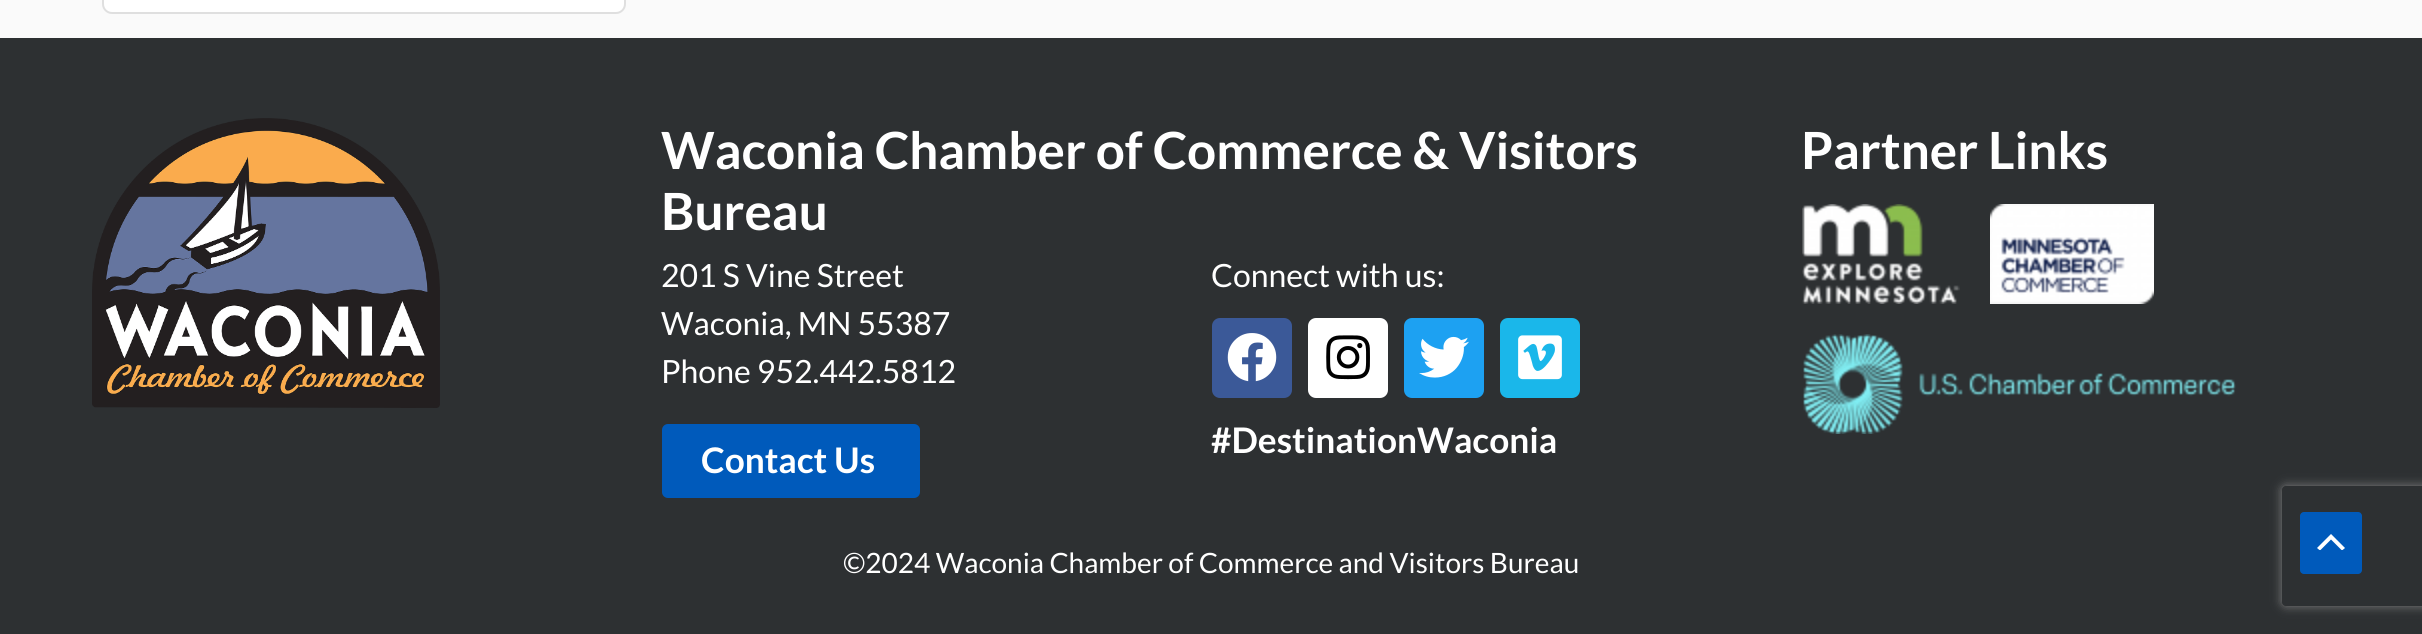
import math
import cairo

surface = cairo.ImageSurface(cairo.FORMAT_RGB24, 2422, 634)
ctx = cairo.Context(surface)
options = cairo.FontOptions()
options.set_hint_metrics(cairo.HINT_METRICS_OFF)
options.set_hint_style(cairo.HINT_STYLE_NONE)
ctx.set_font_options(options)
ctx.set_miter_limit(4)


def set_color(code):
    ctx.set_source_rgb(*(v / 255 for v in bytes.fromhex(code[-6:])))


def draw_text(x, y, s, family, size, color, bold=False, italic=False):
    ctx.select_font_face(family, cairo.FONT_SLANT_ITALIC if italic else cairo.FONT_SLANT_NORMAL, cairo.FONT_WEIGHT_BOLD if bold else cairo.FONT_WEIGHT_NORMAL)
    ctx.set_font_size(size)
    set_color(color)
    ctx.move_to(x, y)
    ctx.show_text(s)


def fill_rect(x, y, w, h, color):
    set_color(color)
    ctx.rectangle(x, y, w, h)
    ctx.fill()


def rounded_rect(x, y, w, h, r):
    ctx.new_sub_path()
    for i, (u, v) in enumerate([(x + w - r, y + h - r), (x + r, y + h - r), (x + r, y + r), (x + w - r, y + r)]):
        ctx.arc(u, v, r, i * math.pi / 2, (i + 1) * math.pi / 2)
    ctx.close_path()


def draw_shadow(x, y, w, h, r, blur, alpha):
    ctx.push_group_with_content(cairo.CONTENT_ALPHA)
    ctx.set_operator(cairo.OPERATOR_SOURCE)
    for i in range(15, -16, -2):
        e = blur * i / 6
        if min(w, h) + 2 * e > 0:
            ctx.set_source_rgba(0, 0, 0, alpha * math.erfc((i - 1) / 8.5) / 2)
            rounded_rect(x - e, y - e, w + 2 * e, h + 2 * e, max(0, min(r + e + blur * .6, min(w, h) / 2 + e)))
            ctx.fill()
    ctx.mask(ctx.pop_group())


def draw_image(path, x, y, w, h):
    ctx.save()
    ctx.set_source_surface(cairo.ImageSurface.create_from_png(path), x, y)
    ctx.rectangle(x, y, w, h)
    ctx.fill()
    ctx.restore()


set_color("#fafafa")
ctx.paint()
set_color("#ffffff")
rounded_rect(103, -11, 522, 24, 9)
ctx.fill_preserve()
set_color("#dfdfdf")
ctx.stroke()
fill_rect(0, 38, 2422, 596, "#2d3032")
draw_image("assets/img1.png", 92, 118, 348, 290)
draw_text(661, 169, "Waconia Chamber of Commerce & Visitors", "Lato", 51.25, "#ffffff", bold=True)
draw_text(661, 230, "Bureau", "Lato", 51.25, "#ffffff", bold=True)
draw_text(661, 287, "201 S Vine Street", "Lato", 32, "#ffffff")
draw_text(661, 335, "Waconia, MN 55387", "Lato", 32, "#ffffff")
draw_text(661, 383, "Phone 952.442.5812", "Lato", 32, "#ffffff")
set_color("#005abb")
rounded_rect(662, 424, 258, 74, 6)
ctx.fill()
draw_text(701, 473, "Contact Us", "Lato", 35.25, "#ffffff", bold=True)
draw_text(1211, 287, "Connect with us:", "Lato", 32, "#ffffff")
set_color("#3b5998")
rounded_rect(1212, 318, 80, 80, 8)
ctx.fill()
draw_image("assets/img2.png", 1227, 333, 50, 49)
set_color("#ffffff")
rounded_rect(1308, 318, 80, 80, 8)
ctx.fill()
draw_image("assets/img3.png", 1326, 335, 44, 45)
set_color("#1da1f2")
rounded_rect(1404, 318, 80, 80, 8)
ctx.fill()
draw_image("assets/img4.png", 1419, 336, 50, 42)
set_color("#1ab7ea")
rounded_rect(1500, 318, 80, 80, 8)
ctx.fill()
draw_image("assets/img5.png", 1518, 335, 44, 45)
draw_text(1211, 453, "#DestinationWaconia", "Lato", 35.25, "#ffffff", bold=True)
draw_text(1801, 169, "Partner Links", "Lato", 51.25, "#ffffff", bold=True)
draw_image("assets/img6.png", 1802, 204, 158, 100)
draw_image("assets/img7.png", 1990, 204, 164, 100)
draw_image("assets/img8.png", 1803, 334, 433, 100)
draw_text(843, 573, "©2024 Waconia Chamber of Commerce and Visitors Bureau", "Lato", 28, "#ffffff")
ctx.save()
ctx.set_fill_rule(cairo.FILL_RULE_EVEN_ODD)
ctx.new_path()
ctx.move_to(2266, 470)
ctx.line_to(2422, 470)
ctx.line_to(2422, 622)
ctx.line_to(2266, 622)
ctx.close_path()
ctx.move_to(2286, 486)
ctx.line_to(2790, 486)
ctx.curve_to(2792, 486, 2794, 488, 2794, 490)
ctx.line_to(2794, 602)
ctx.curve_to(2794, 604, 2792, 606, 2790, 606)
ctx.line_to(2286, 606)
ctx.curve_to(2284, 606, 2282, 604, 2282, 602)
ctx.line_to(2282, 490)
ctx.curve_to(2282, 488, 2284, 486, 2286, 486)
ctx.close_path()
ctx.clip()
set_color("#808080")
draw_shadow(2282, 486, 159, 120, 4, 5, 1)
ctx.restore()
set_color("#005abb")
rounded_rect(2300, 512, 62, 62, 4)
ctx.fill()
ctx.save()
ctx.rectangle(2306, 532, 48, 18)
ctx.clip()
set_color("#ffffff")
ctx.new_path()
ctx.move_to(2345, 548)
ctx.line_to(2331, 534)
ctx.line_to(2317, 548)
ctx.line_to(2320, 550.5)
ctx.line_to(2331, 539.5)
ctx.line_to(2342, 550.5)
ctx.close_path()
ctx.fill()
ctx.restore()
surface.write_to_png("output.png")
